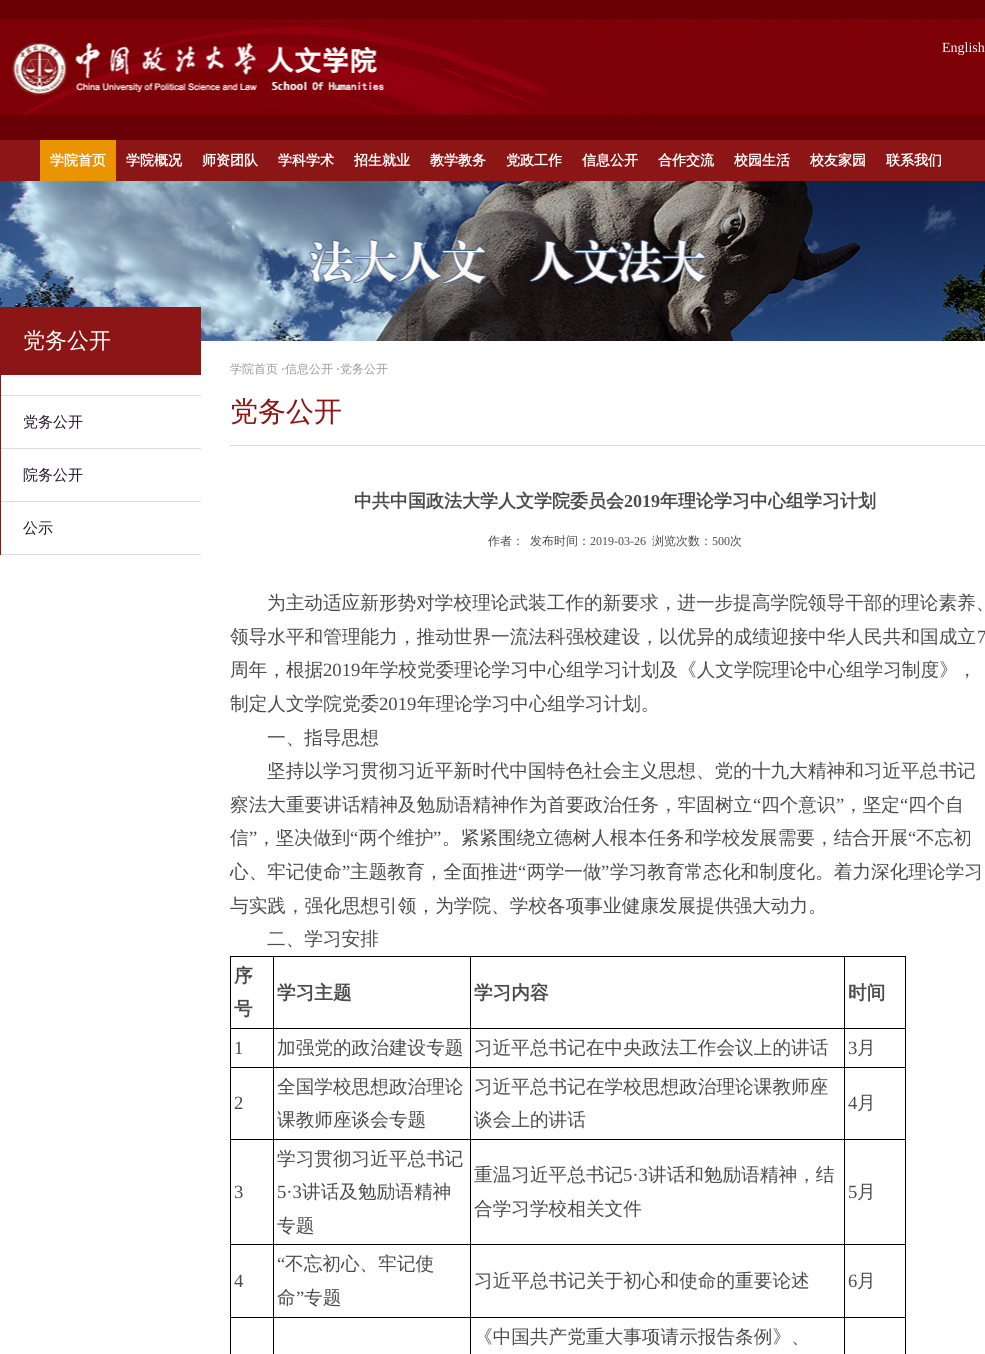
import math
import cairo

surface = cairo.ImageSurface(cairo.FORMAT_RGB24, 985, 1354)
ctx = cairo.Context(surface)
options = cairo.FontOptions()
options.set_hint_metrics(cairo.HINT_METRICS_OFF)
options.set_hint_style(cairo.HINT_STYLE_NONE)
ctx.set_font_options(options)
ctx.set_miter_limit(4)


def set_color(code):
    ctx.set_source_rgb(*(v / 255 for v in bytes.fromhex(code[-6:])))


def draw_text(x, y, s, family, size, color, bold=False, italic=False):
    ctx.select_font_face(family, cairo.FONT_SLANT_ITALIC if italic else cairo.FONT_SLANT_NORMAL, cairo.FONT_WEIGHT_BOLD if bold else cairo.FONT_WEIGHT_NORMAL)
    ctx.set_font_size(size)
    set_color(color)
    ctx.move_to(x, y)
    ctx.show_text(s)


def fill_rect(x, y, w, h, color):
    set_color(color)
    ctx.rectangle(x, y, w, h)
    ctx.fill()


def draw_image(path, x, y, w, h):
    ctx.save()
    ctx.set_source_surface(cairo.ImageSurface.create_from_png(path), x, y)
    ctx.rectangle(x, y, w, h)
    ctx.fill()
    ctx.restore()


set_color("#ffffff")
ctx.paint()
draw_image("assets/img1.png", 0, 0, 985, 140)
draw_text(942, 52, "English", "Liberation Serif", 14, "#ffffff")
fill_rect(0, 140, 985, 41, "#8c1515")
fill_rect(40, 140, 76, 41, "#ea9401")
draw_text(50, 165, "学院首页", "WenQuanYi Zen Hei", 14, "#ffffff", bold=True)
draw_text(126, 165, "学院概况", "WenQuanYi Zen Hei", 14, "#ffffff", bold=True)
draw_text(202, 165, "师资团队", "WenQuanYi Zen Hei", 14, "#ffffff", bold=True)
draw_text(278, 165, "学科学术", "WenQuanYi Zen Hei", 14, "#ffffff", bold=True)
draw_text(354, 165, "招生就业", "WenQuanYi Zen Hei", 14, "#ffffff", bold=True)
draw_text(430, 165, "教学教务", "WenQuanYi Zen Hei", 14, "#ffffff", bold=True)
draw_text(506, 165, "党政工作", "WenQuanYi Zen Hei", 14, "#ffffff", bold=True)
draw_text(582, 165, "信息公开", "WenQuanYi Zen Hei", 14, "#ffffff", bold=True)
draw_text(658, 165, "合作交流", "WenQuanYi Zen Hei", 14, "#ffffff", bold=True)
draw_text(734, 165, "校园生活", "WenQuanYi Zen Hei", 14, "#ffffff", bold=True)
draw_text(810, 165, "校友家园", "WenQuanYi Zen Hei", 14, "#ffffff", bold=True)
draw_text(886, 165, "联系我们", "WenQuanYi Zen Hei", 14, "#ffffff", bold=True)
draw_image("assets/img2.png", 0, 181, 985, 160)
fill_rect(0, 307, 1, 248, "#8c1515")
fill_rect(1, 307, 200, 68, "#8c1515")
draw_text(23, 348, "党务公开", "WenQuanYi Zen Hei Medium", 22, "#ffffff")
fill_rect(1, 395, 200, 1, "#dddddd")
fill_rect(1, 448, 200, 1, "#dddddd")
draw_text(23, 427, "党务公开", "WenQuanYi Zen Hei Medium", 15, "#22132d")
fill_rect(1, 501, 200, 1, "#dddddd")
draw_text(23, 480, "院务公开", "WenQuanYi Zen Hei Medium", 15, "#22132d")
fill_rect(1, 554, 200, 1, "#dddddd")
draw_text(23, 533, "公示", "WenQuanYi Zen Hei Medium", 15, "#22132d")
draw_text(230, 373, "学院首页", "WenQuanYi Zen Hei Medium", 12, "#999999")
draw_text(281, 373, "·", "Liberation Serif", 12, "#4b4b4b")
draw_text(285, 373, "信息公开", "WenQuanYi Zen Hei Medium", 12, "#999999")
draw_text(336, 373, "·", "Liberation Serif", 12, "#4b4b4b")
draw_text(340, 373, "党务公开", "WenQuanYi Zen Hei Medium", 12, "#999999")
fill_rect(230, 445, 755, 1, "#dddddd")
draw_text(230, 421, "党务公开", "WenQuanYi Zen Hei Medium", 28, "#8c1515")
draw_text(354, 507, "中共中国政法大学人文学院委员会", "WenQuanYi Zen Hei", 18, "#4b4b4b", bold=True)
draw_text(624, 507, "2019", "Liberation Serif", 18, "#4b4b4b", bold=True)
draw_text(660, 507, "年理论学习中心组学习计划", "WenQuanYi Zen Hei", 18, "#4b4b4b", bold=True)
draw_text(488, 545, "作者：", "WenQuanYi Zen Hei Medium", 12, "#4b4b4b")
draw_text(530, 545, "发布时间：", "WenQuanYi Zen Hei Medium", 12, "#4b4b4b")
draw_text(590, 545, "2019-03-26", "Liberation Serif", 12, "#4b4b4b")
draw_text(652, 545, "浏览次数：", "WenQuanYi Zen Hei Medium", 12, "#4b4b4b")
draw_text(712, 545, "500", "Liberation Serif", 12, "#4b4b4b")
draw_text(730, 545, "次", "WenQuanYi Zen Hei Medium", 12, "#4b4b4b")
draw_text(267, 609, "为主动适应新形势对学校理论武装工作的新要求，进一步提高学院领导干部的理论素养、", "WenQuanYi Zen Hei Medium", 18.65, "#4b4b4b")
draw_text(230, 643, "领导水平和管理能力，推动世界一流法科强校建设，以优异的成绩迎接中华人民共和国成立", "WenQuanYi Zen Hei Medium", 18.65, "#4b4b4b")
draw_text(977, 643, "7", "Liberation Serif", 18.65, "#4b4b4b")
draw_text(230, 676, "周年，根据", "WenQuanYi Zen Hei Medium", 18.65, "#4b4b4b")
draw_text(323, 676, "2019", "Liberation Serif", 18.65, "#4b4b4b")
draw_text(361, 676, "年学校党委理论学习中心组学习计划及《人文学院理论中心组学习制度》，", "WenQuanYi Zen Hei Medium", 18.65, "#4b4b4b")
draw_text(230, 710, "制定人文学院党委", "WenQuanYi Zen Hei Medium", 18.65, "#4b4b4b")
draw_text(379, 710, "2019", "Liberation Serif", 18.65, "#4b4b4b")
draw_text(417, 710, "年理论学习中心组学习计划。", "WenQuanYi Zen Hei Medium", 18.65, "#4b4b4b")
draw_text(267, 744, "一、指导思想", "WenQuanYi Zen Hei Medium", 18.65, "#4b4b4b")
draw_text(267, 777, "坚持以学习贯彻习近平新时代中国特色社会主义思想、党的十九大精神和习近平总书记", "WenQuanYi Zen Hei Medium", 18.65, "#4b4b4b")
draw_text(230, 811, "察法大重要讲话精神及勉励语精神作为首要政治任务，牢固树立", "WenQuanYi Zen Hei Medium", 18.65, "#4b4b4b")
draw_text(753, 811, "“", "Liberation Serif", 18.65, "#4b4b4b")
draw_text(761, 811, "四个意识", "WenQuanYi Zen Hei Medium", 18.65, "#4b4b4b")
draw_text(836, 811, "”", "Liberation Serif", 18.65, "#4b4b4b")
draw_text(844, 811, "，坚定", "WenQuanYi Zen Hei Medium", 18.65, "#4b4b4b")
draw_text(900, 811, "“", "Liberation Serif", 18.65, "#4b4b4b")
draw_text(908, 811, "四个自", "WenQuanYi Zen Hei Medium", 18.65, "#4b4b4b")
draw_text(230, 844, "信", "WenQuanYi Zen Hei Medium", 18.65, "#4b4b4b")
draw_text(249, 844, "”", "Liberation Serif", 18.65, "#4b4b4b")
draw_text(257, 844, "，坚决做到", "WenQuanYi Zen Hei Medium", 18.65, "#4b4b4b")
draw_text(350, 844, "“", "Liberation Serif", 18.65, "#4b4b4b")
draw_text(359, 844, "两个维护", "WenQuanYi Zen Hei Medium", 18.65, "#4b4b4b")
draw_text(433, 844, "”", "Liberation Serif", 18.65, "#4b4b4b")
draw_text(442, 844, "。紧紧围绕立德树人根本任务和学校发展需要，结合开展", "WenQuanYi Zen Hei Medium", 18.65, "#4b4b4b")
draw_text(908, 844, "“", "Liberation Serif", 18.65, "#4b4b4b")
draw_text(916, 844, "不忘初", "WenQuanYi Zen Hei Medium", 18.65, "#4b4b4b")
draw_text(230, 878, "心、牢记使命", "WenQuanYi Zen Hei Medium", 18.65, "#4b4b4b")
draw_text(342, 878, "”", "Liberation Serif", 18.65, "#4b4b4b")
draw_text(350, 878, "主题教育，全面推进", "WenQuanYi Zen Hei Medium", 18.65, "#4b4b4b")
draw_text(518, 878, "“", "Liberation Serif", 18.65, "#4b4b4b")
draw_text(527, 878, "两学一做", "WenQuanYi Zen Hei Medium", 18.65, "#4b4b4b")
draw_text(601, 878, "”", "Liberation Serif", 18.65, "#4b4b4b")
draw_text(610, 878, "学习教育常态化和制度化。着力深化理论学习", "WenQuanYi Zen Hei Medium", 18.65, "#4b4b4b")
draw_text(230, 912, "与实践，强化思想引领，为学院、学校各项事业健康发展提供强大动力。", "WenQuanYi Zen Hei Medium", 18.65, "#4b4b4b")
draw_text(267, 945, "二、学习安排", "WenQuanYi Zen Hei Medium", 18.65, "#4b4b4b")
fill_rect(230, 956, 676, 1, "#000000")
fill_rect(905, 956, 1, 398, "#000000")
fill_rect(230, 956, 1, 398, "#000000")
draw_text(234, 982, "序", "WenQuanYi Zen Hei", 18.65, "#4b4b4b", bold=True)
draw_text(234, 1015, "号", "WenQuanYi Zen Hei", 18.65, "#4b4b4b", bold=True)
fill_rect(844, 1028, 62, 1, "#000000")
fill_rect(844, 1067, 62, 1, "#000000")
fill_rect(844, 1139, 62, 1, "#000000")
fill_rect(844, 1244, 62, 1, "#000000")
fill_rect(844, 1317, 62, 1, "#000000")
fill_rect(844, 1317, 1, 37, "#000000")
fill_rect(470, 1317, 375, 1, "#000000")
fill_rect(844, 1244, 1, 74, "#000000")
fill_rect(470, 1244, 375, 1, "#000000")
fill_rect(844, 1139, 1, 106, "#000000")
fill_rect(470, 1139, 375, 1, "#000000")
fill_rect(844, 1067, 1, 73, "#000000")
fill_rect(470, 1067, 375, 1, "#000000")
fill_rect(844, 1028, 1, 40, "#000000")
fill_rect(470, 1028, 375, 1, "#000000")
fill_rect(470, 1317, 1, 37, "#000000")
fill_rect(273, 1317, 198, 1, "#000000")
fill_rect(470, 1244, 1, 74, "#000000")
fill_rect(273, 1244, 198, 1, "#000000")
fill_rect(470, 1139, 1, 106, "#000000")
fill_rect(273, 1139, 198, 1, "#000000")
fill_rect(470, 1067, 1, 73, "#000000")
fill_rect(273, 1067, 198, 1, "#000000")
fill_rect(470, 1028, 1, 40, "#000000")
fill_rect(273, 1028, 198, 1, "#000000")
fill_rect(273, 1317, 1, 37, "#000000")
fill_rect(230, 1317, 44, 1, "#000000")
fill_rect(273, 1244, 1, 74, "#000000")
fill_rect(230, 1244, 44, 1, "#000000")
fill_rect(273, 1139, 1, 106, "#000000")
fill_rect(230, 1139, 44, 1, "#000000")
fill_rect(273, 1067, 1, 73, "#000000")
fill_rect(230, 1067, 44, 1, "#000000")
fill_rect(273, 1028, 1, 40, "#000000")
fill_rect(230, 1028, 44, 1, "#000000")
fill_rect(273, 956, 1, 73, "#000000")
draw_text(277, 999, "学习主题", "WenQuanYi Zen Hei", 18.65, "#4b4b4b", bold=True)
fill_rect(470, 956, 1, 73, "#000000")
draw_text(474, 999, "学习内容", "WenQuanYi Zen Hei", 18.65, "#4b4b4b", bold=True)
fill_rect(844, 956, 1, 73, "#000000")
draw_text(848, 999, "时间", "WenQuanYi Zen Hei", 18.65, "#4b4b4b", bold=True)
draw_text(234, 1054, "1", "Liberation Serif", 18.65, "#4b4b4b")
draw_text(277, 1054, "加强党的政治建设专题", "WenQuanYi Zen Hei Medium", 18.65, "#4b4b4b")
draw_text(474, 1054, "习近平总书记在中央政法工作会议上的讲话", "WenQuanYi Zen Hei Medium", 18.65, "#4b4b4b")
draw_text(848, 1054, "3", "Liberation Serif", 18.65, "#4b4b4b")
draw_text(857, 1054, "月", "WenQuanYi Zen Hei Medium", 18.65, "#4b4b4b")
draw_text(234, 1109, "2", "Liberation Serif", 18.65, "#4b4b4b")
draw_text(277, 1093, "全国学校思想政治理论", "WenQuanYi Zen Hei Medium", 18.65, "#4b4b4b")
draw_text(277, 1126, "课教师座谈会专题", "WenQuanYi Zen Hei Medium", 18.65, "#4b4b4b")
draw_text(474, 1093, "习近平总书记在学校思想政治理论课教师座", "WenQuanYi Zen Hei Medium", 18.65, "#4b4b4b")
draw_text(474, 1126, "谈会上的讲话", "WenQuanYi Zen Hei Medium", 18.65, "#4b4b4b")
draw_text(848, 1109, "4", "Liberation Serif", 18.65, "#4b4b4b")
draw_text(857, 1109, "月", "WenQuanYi Zen Hei Medium", 18.65, "#4b4b4b")
draw_text(234, 1198, "3", "Liberation Serif", 18.65, "#4b4b4b")
draw_text(277, 1165, "学习贯彻习近平总书记", "WenQuanYi Zen Hei Medium", 18.65, "#4b4b4b")
draw_text(277, 1198, "5·3", "Liberation Serif", 18.65, "#4b4b4b")
draw_text(302, 1198, "讲话及勉励语精神", "WenQuanYi Zen Hei Medium", 18.65, "#4b4b4b")
draw_text(277, 1232, "专题", "WenQuanYi Zen Hei Medium", 18.65, "#4b4b4b")
draw_text(474, 1181, "重温习近平总书记", "WenQuanYi Zen Hei Medium", 18.65, "#4b4b4b")
draw_text(623, 1181, "5·3", "Liberation Serif", 18.65, "#4b4b4b")
draw_text(648, 1181, "讲话和勉励语精神，结", "WenQuanYi Zen Hei Medium", 18.65, "#4b4b4b")
draw_text(474, 1215, "合学习学校相关文件", "WenQuanYi Zen Hei Medium", 18.65, "#4b4b4b")
draw_text(848, 1198, "5", "Liberation Serif", 18.65, "#4b4b4b")
draw_text(857, 1198, "月", "WenQuanYi Zen Hei Medium", 18.65, "#4b4b4b")
draw_text(234, 1287, "4", "Liberation Serif", 18.65, "#4b4b4b")
draw_text(277, 1270, "“", "Liberation Serif", 18.65, "#4b4b4b")
draw_text(285, 1270, "不忘初心、牢记使", "WenQuanYi Zen Hei Medium", 18.65, "#4b4b4b")
draw_text(277, 1304, "命", "WenQuanYi Zen Hei Medium", 18.65, "#4b4b4b")
draw_text(296, 1304, "”", "Liberation Serif", 18.65, "#4b4b4b")
draw_text(304, 1304, "专题", "WenQuanYi Zen Hei Medium", 18.65, "#4b4b4b")
draw_text(474, 1287, "习近平总书记关于初心和使命的重要论述", "WenQuanYi Zen Hei Medium", 18.65, "#4b4b4b")
draw_text(848, 1287, "6", "Liberation Serif", 18.65, "#4b4b4b")
draw_text(857, 1287, "月", "WenQuanYi Zen Hei Medium", 18.65, "#4b4b4b")
draw_text(474, 1343, "《中国共产党重大事项请示报告条例》、", "WenQuanYi Zen Hei Medium", 18.65, "#4b4b4b")
surface.write_to_png("output.png")
